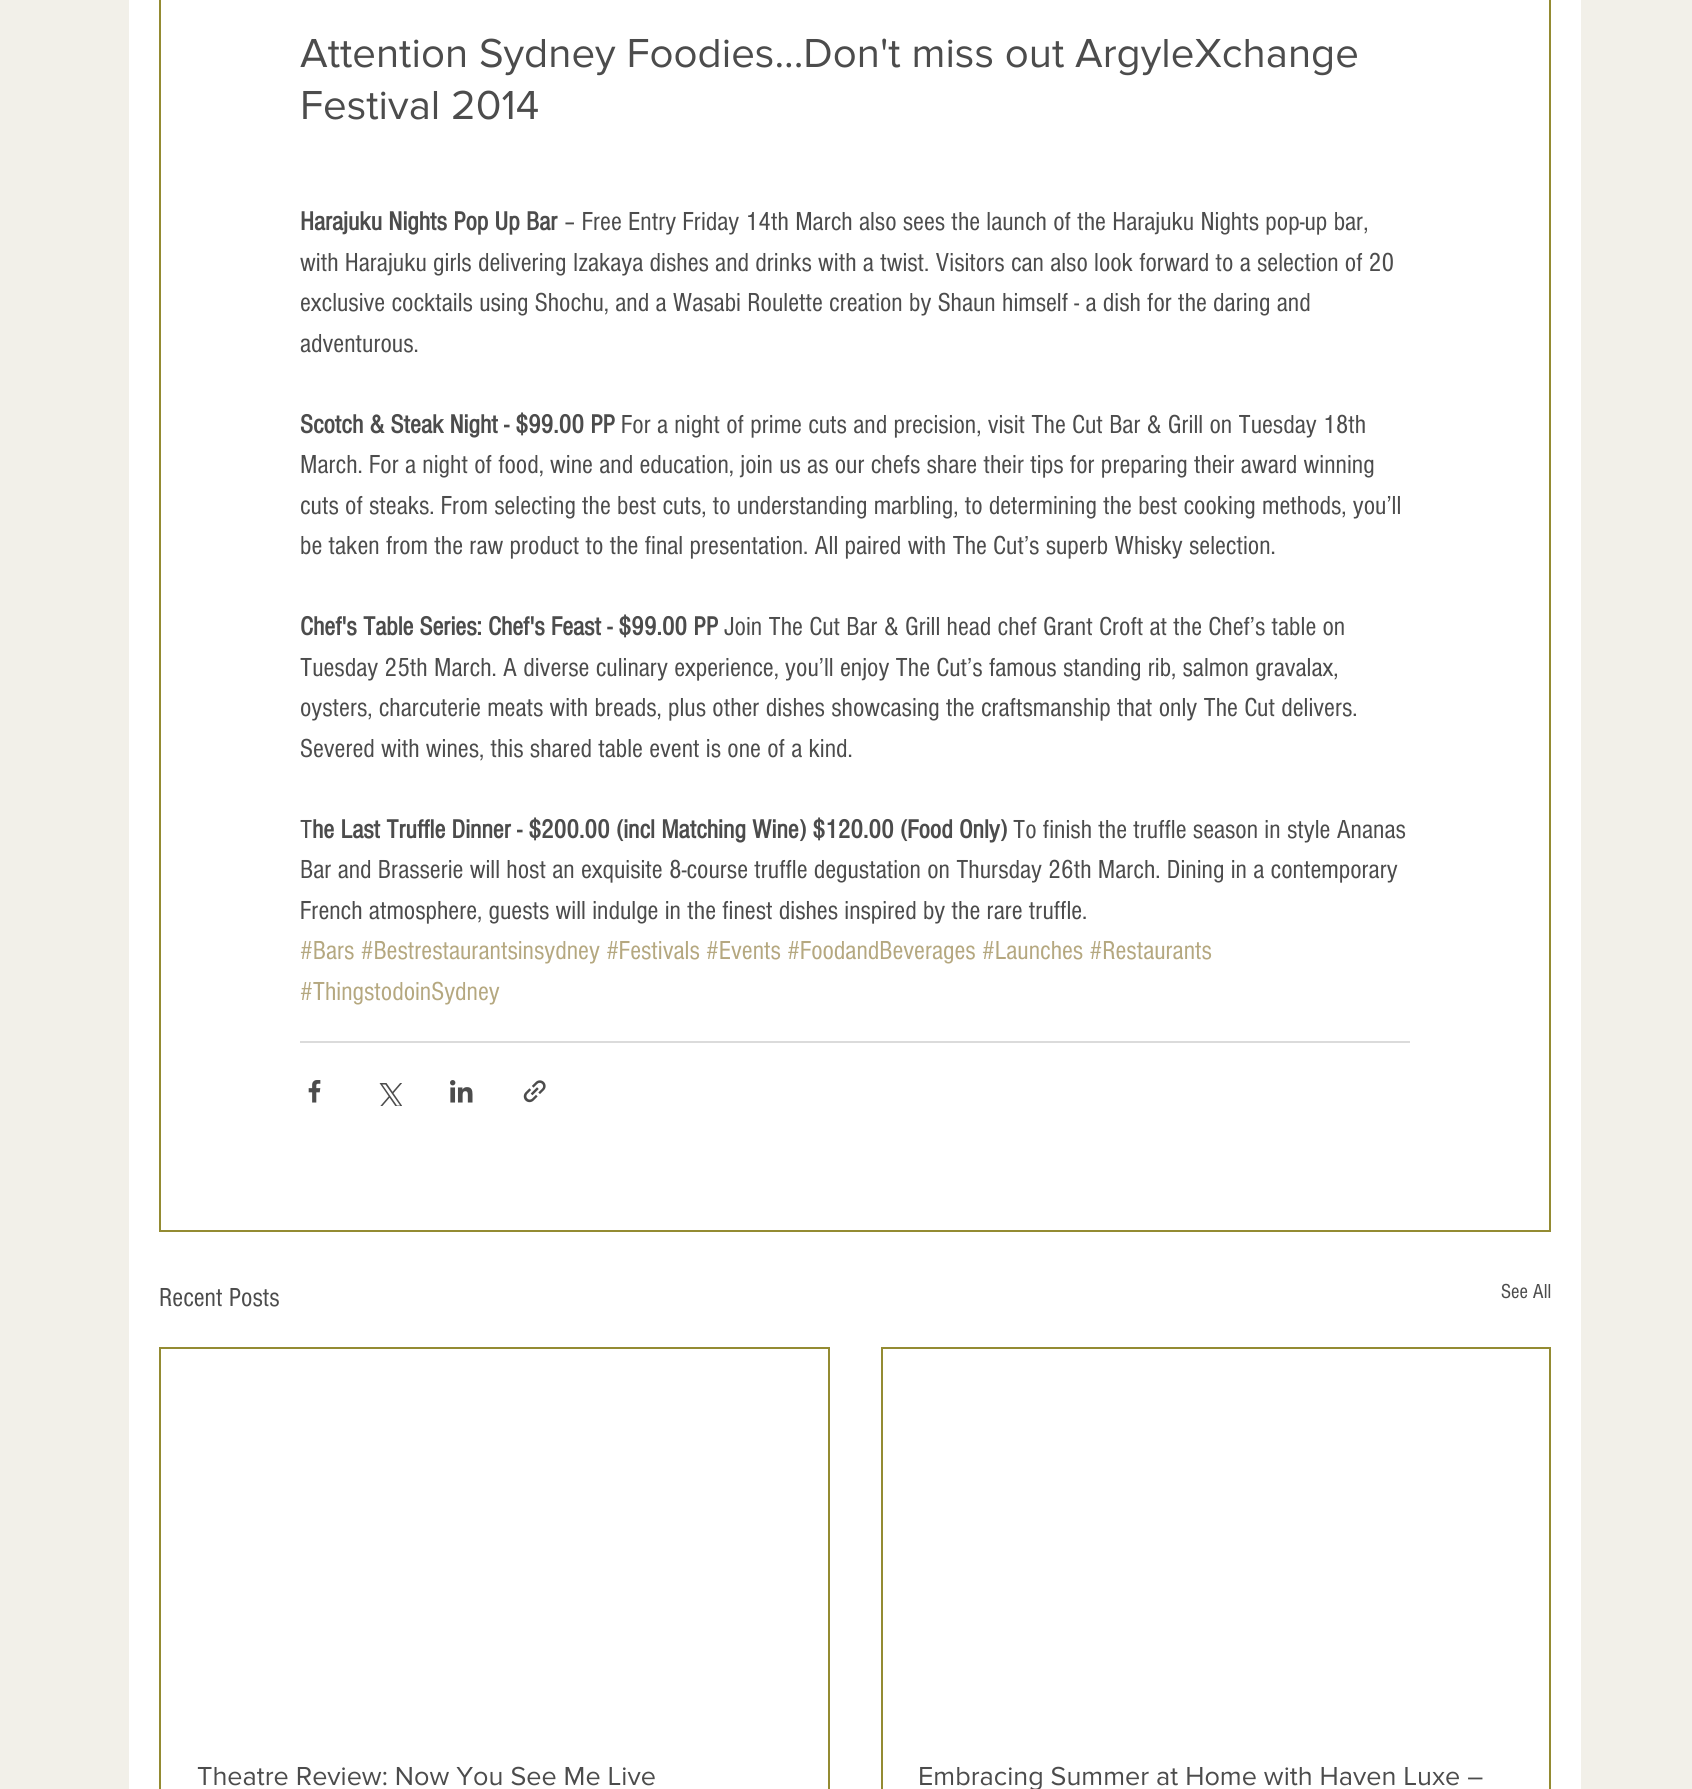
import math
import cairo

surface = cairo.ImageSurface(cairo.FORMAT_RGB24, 1692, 1789)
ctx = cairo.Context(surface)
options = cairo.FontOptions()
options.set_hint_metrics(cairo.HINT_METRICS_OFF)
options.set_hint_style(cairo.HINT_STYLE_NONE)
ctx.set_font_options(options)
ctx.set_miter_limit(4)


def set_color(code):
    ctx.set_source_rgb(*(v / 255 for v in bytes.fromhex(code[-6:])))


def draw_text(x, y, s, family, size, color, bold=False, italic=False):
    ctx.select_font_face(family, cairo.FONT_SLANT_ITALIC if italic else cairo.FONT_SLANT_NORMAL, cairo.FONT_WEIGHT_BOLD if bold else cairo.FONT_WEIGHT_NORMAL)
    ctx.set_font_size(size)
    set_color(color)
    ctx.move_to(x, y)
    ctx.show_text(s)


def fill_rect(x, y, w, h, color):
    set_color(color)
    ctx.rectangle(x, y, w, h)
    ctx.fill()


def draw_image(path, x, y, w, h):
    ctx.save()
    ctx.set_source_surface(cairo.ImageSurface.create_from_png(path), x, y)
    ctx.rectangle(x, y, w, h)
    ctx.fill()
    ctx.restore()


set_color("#f2f0e9")
ctx.paint()
fill_rect(129, 0, 1452, 1789, "#ffffff")
ctx.rectangle(160, -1, 1390, 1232)
set_color("#948b32")
ctx.stroke()
draw_text(300, 67, "Attention Sydney Foodies...Don't miss out ArgyleXchange", "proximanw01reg", 42, "#4c4c4c")
draw_text(300, 119, "Festival 2014", "proximanw01reg", 42, "#4c4c4c")
draw_text(300, 230, "Harajuku Nights Pop Up Bar", "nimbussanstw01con", 27, "#4c4c4c", bold=True)
draw_text(564, 230, "– Free Entry Friday 14th March also sees the launch of the Harajuku Nights pop-up bar,", "nimbussanstw01con", 27, "#4c4c4c")
draw_text(300, 271, "with Harajuku girls delivering Izakaya dishes and drinks with a twist. Visitors can also look forward to a selection of 20", "nimbussanstw01con", 27, "#4c4c4c")
draw_text(300, 311, "exclusive cocktails using Shochu, and a Wasabi Roulette creation by Shaun himself - a dish for the daring and", "nimbussanstw01con", 27, "#4c4c4c")
draw_text(300, 352, "adventurous.", "nimbussanstw01con", 27, "#4c4c4c")
draw_text(300, 433, "Scotch & Steak Night - $99.00 PP", "nimbussanstw01con", 27, "#4c4c4c", bold=True)
draw_text(621, 433, "For a night of prime cuts and precision, visit The Cut Bar & Grill on Tuesday 18th", "nimbussanstw01con", 27, "#4c4c4c")
draw_text(300, 473, "March. For a night of food, wine and education, join us as our chefs share their tips for preparing their award winning", "nimbussanstw01con", 27, "#4c4c4c")
draw_text(300, 514, "cuts of steaks. From selecting the best cuts, to understanding marbling, to determining the best cooking methods, you’ll", "nimbussanstw01con", 27, "#4c4c4c")
draw_text(300, 554, "be taken from the raw product to the final presentation. All paired with The Cut’s superb Whisky selection.", "nimbussanstw01con", 27, "#4c4c4c")
draw_text(300, 635, "Chef's Table Series: Chef's Feast - $99.00 PP", "nimbussanstw01con", 27, "#4c4c4c", bold=True)
draw_text(724, 635, "Join The Cut Bar & Grill head chef Grant Croft at the Chef’s table on", "nimbussanstw01con", 27, "#4c4c4c")
draw_text(300, 676, "Tuesday 25th March. A diverse culinary experience, you’ll enjoy The Cut’s famous standing rib, salmon gravalax,", "nimbussanstw01con", 27, "#4c4c4c")
draw_text(300, 716, "oysters, charcuterie meats with breads, plus other dishes showcasing the craftsmanship that only The Cut delivers.", "nimbussanstw01con", 27, "#4c4c4c")
draw_text(300, 757, "Severed with wines, this shared table event is one of a kind.", "nimbussanstw01con", 27, "#4c4c4c")
draw_text(300, 838, "T", "nimbussanstw01con", 27, "#4c4c4c")
draw_text(312, 838, "he Last Truffle Dinner - $200.00 (incl Matching Wine) $120.00 (Food Only)", "nimbussanstw01con", 27, "#4c4c4c", bold=True)
draw_text(1013, 838, "To finish the truffle season in style Ananas", "nimbussanstw01con", 27, "#4c4c4c")
draw_text(300, 878, "Bar and Brasserie will host an exquisite 8-course truffle degustation on Thursday 26th March. Dining in a contemporary", "nimbussanstw01con", 27, "#4c4c4c")
draw_text(300, 919, "French atmosphere, guests will indulge in the finest dishes inspired by the rare truffle.", "nimbussanstw01con", 27, "#4c4c4c")
draw_text(300, 959, "#Bars #Bestrestaurantsinsydney #Festivals #Events #FoodandBeverages #Launches #Restaurants", "nimbussanstw01con", 27, "#b5a880")
draw_text(300, 1000, "#ThingstodoinSydney", "nimbussanstw01con", 27, "#b5a880")
fill_rect(300, 1041, 1110, 2, "#dbdbdb")
draw_image("assets/img1.png", 308, 1080, 13, 23)
draw_image("assets/img2.png", 379, 1083, 23, 23)
draw_image("assets/img3.png", 450, 1080, 23, 23)
draw_image("assets/img4.png", 523, 1080, 23, 23)
draw_text(159, 1306, "Recent Posts", "nimbussanstw01con", 27, "#4c4c4c")
draw_text(1501, 1298, "See All", "nimbussanstw01con", 21, "#4c4c4c")
ctx.rectangle(160, 1348, 669, 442)
set_color("#948b32")
ctx.stroke()
draw_text(197, 1785, "Theatre Review: Now You See Me Live", "proximanw01reg", 27, "#4c4c4c")
ctx.rectangle(882, 1348, 668, 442)
set_color("#948b32")
ctx.stroke()
draw_text(918, 1785, "Embracing Summer at Home with Haven Luxe –", "proximanw01reg", 27, "#4c4c4c")
surface.write_to_png("output.png")
